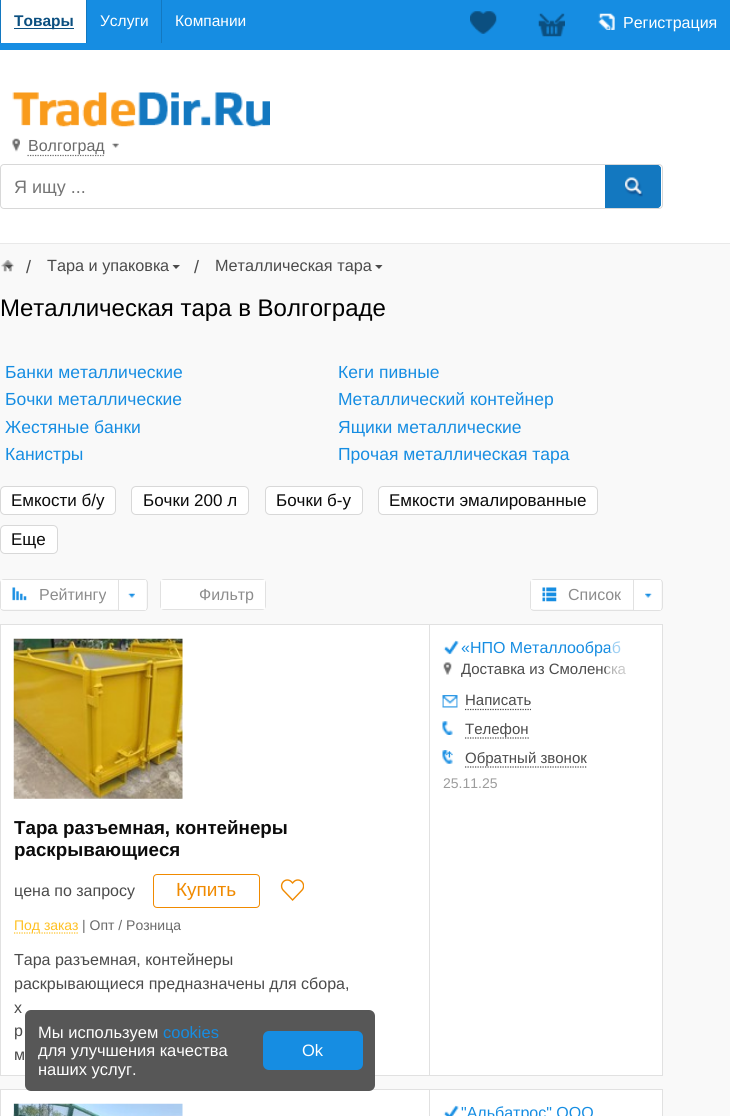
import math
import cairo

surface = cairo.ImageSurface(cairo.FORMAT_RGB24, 730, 1116)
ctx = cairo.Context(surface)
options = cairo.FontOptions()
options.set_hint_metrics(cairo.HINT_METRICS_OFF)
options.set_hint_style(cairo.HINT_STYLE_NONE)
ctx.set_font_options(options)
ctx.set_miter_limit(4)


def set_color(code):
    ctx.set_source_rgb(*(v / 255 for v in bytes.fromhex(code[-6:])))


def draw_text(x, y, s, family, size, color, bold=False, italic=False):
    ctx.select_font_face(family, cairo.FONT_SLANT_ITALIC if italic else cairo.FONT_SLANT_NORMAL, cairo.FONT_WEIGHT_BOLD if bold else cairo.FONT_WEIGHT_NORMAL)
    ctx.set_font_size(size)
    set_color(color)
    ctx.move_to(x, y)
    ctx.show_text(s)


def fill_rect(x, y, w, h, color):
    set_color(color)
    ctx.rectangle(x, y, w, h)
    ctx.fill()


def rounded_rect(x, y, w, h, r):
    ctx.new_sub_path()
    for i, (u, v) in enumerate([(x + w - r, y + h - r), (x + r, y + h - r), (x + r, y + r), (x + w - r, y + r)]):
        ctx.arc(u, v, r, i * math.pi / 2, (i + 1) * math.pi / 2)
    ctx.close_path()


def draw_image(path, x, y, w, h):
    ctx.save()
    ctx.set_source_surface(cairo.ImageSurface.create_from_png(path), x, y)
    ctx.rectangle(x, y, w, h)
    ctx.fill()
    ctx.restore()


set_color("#f9f9f9")
ctx.paint()
fill_rect(0, 0, 730, 50, "#168de2")
fill_rect(1, 0, 85, 43, "#ffffff")
fill_rect(0, 0, 1, 43, "#1378c0")
fill_rect(14, 28, 60, 1, "#0b4f80")
draw_text(14, 26, "Товары", "Arimo", 15.5, "#0b4f80", bold=True)
fill_rect(86, 0, 1, 43, "#1378c0")
draw_text(100, 26, "Услуги", "Arimo", 15.5, "#ffffff")
fill_rect(161, 0, 1, 43, "#1378c0")
draw_text(175, 26, "Компании", "Arimo", 15.5, "#ffffff")
draw_image("assets/img1.png", 470, 11, 27, 23)
draw_image("assets/img2.png", 538, 13, 27, 24)
draw_image("assets/img3.png", 598, 13, 17, 17)
draw_text(623, 28, "Регистрация", "Arimo", 16, "#ffffff")
fill_rect(0, 50, 730, 193, "#ffffff")
fill_rect(0, 243, 730, 1, "#e9e9e9")
draw_image("assets/img4.png", 12, 92, 258, 35)
draw_image("assets/img5.png", 12, 138, 107, 14)
ctx.new_path()
ctx.move_to(27.5, 155.5)
ctx.line_to(104, 155.5)
set_color("#6a6a6a")
ctx.set_line_width(1.2)
ctx.set_dash([1.25, 1.25])
ctx.stroke()
draw_text(28, 151, "Волгоград", "Arimo", 16, "#6a6a6a")
rounded_rect(0.5, 164.5, 662, 44, 3.5)
set_color("#d8d8d8")
ctx.set_line_width(1)
ctx.set_dash([])
ctx.stroke()
set_color("#ffffff")
ctx.new_path()
ctx.move_to(5, 165)
ctx.line_to(583, 165)
ctx.line_to(583, 208)
ctx.line_to(5, 208)
ctx.curve_to(3, 208, 1, 206, 1, 204)
ctx.line_to(1, 169)
ctx.curve_to(1, 167, 3, 165, 5, 165)
ctx.close_path()
ctx.fill()
ctx.save()
ctx.rectangle(14, 176, 556, 20)
ctx.clip()
draw_text(14, 193, "Я ищу ...", "Liberation Sans", 18, "#757575")
ctx.restore()
set_color("#1378c0")
ctx.new_path()
ctx.move_to(605, 165)
ctx.line_to(657, 165)
ctx.curve_to(659, 165, 661, 167, 661, 169)
ctx.line_to(661, 204)
ctx.curve_to(661, 206, 659, 208, 657, 208)
ctx.line_to(605, 208)
ctx.close_path()
ctx.fill()
draw_image("assets/img6.png", 625, 177, 18, 20)
ctx.new_path()
ctx.move_to(605.5, 165.5)
ctx.line_to(657, 165.5)
ctx.curve_to(659, 165.5, 660.5, 167, 660.5, 169)
ctx.line_to(660.5, 204)
ctx.curve_to(660.5, 206, 659, 207.5, 657, 207.5)
ctx.line_to(605.5, 207.5)
ctx.close_path()
ctx.stroke()
draw_image("assets/img7.png", 1, 260, 13, 12)
set_color("#4b4b4b")
ctx.new_path()
ctx.move_to(5, 265)
ctx.line_to(12.5, 265)
ctx.line_to(9, 269)
ctx.close_path()
ctx.fill()
draw_text(26, 273, "/", "Arimo", 18, "#4b4b4b")
draw_text(47, 271, "Тара и упаковка", "Arimo", 16.25, "#4b4b4b")
ctx.new_path()
ctx.move_to(172.5, 265)
ctx.line_to(180, 265)
ctx.line_to(176, 269)
ctx.close_path()
ctx.fill()
draw_text(194, 273, "/", "Arimo", 18, "#4b4b4b")
draw_text(215, 271, "Металлическая тара", "Arimo", 16.25, "#4b4b4b")
ctx.new_path()
ctx.move_to(375, 265)
ctx.line_to(382.5, 265)
ctx.line_to(379, 269)
ctx.close_path()
ctx.fill()
draw_text(0, 316, "Металлическая тара в Волгограде", "Arimo", 24, "#000000")
draw_text(5, 378, "Банки металлические", "Arimo", 17.5, "#168de2")
draw_text(5, 405, "Бочки металлические", "Arimo", 17.5, "#168de2")
draw_text(5, 433, "Жестяные банки", "Arimo", 17.5, "#168de2")
draw_text(5, 460, "Канистры", "Arimo", 17.5, "#168de2")
draw_text(338, 378, "Кеги пивные", "Arimo", 17.5, "#168de2")
draw_text(338, 405, "Металлический контейнер", "Arimo", 17.5, "#168de2")
draw_text(338, 433, "Ящики металлические", "Arimo", 17.5, "#168de2")
draw_text(338, 460, "Прочая металлическая тара", "Arimo", 17.5, "#168de2")
set_color("#ffffff")
rounded_rect(0.5, 486.5, 115, 28, 4.5)
ctx.fill_preserve()
set_color("#d8d8d8")
ctx.stroke()
draw_text(11, 506, "Емкости б/у", "Arimo", 17, "#0b0b0b")
set_color("#ffffff")
rounded_rect(131.5, 486.5, 117, 28, 4.5)
ctx.fill_preserve()
set_color("#d8d8d8")
ctx.stroke()
draw_text(143, 506, "Бочки 200 л", "Arimo", 17, "#0b0b0b")
set_color("#ffffff")
rounded_rect(265.5, 486.5, 97, 28, 4.5)
ctx.fill_preserve()
set_color("#d8d8d8")
ctx.stroke()
draw_text(276, 506, "Бочки б-у", "Arimo", 17, "#0b0b0b")
set_color("#ffffff")
rounded_rect(378.5, 486.5, 219, 28, 4.5)
ctx.fill_preserve()
set_color("#d8d8d8")
ctx.stroke()
draw_text(389, 506, "Емкости эмалированные", "Arimo", 17, "#0b0b0b")
set_color("#ffffff")
rounded_rect(0.5, 525.5, 57, 28, 4.5)
ctx.fill_preserve()
set_color("#d8d8d8")
ctx.stroke()
draw_text(11, 545, "Еще", "Arimo", 17, "#0b0b0b")
rounded_rect(0.5, 579.5, 147, 31, 3.5)
set_color("#e1e1e1")
ctx.stroke()
fill_rect(1, 580, 117, 29, "#ffffff")
draw_image("assets/img8.png", 12, 587, 15, 14)
draw_text(39, 600, "Рейтингу", "Arimo", 16, "#8c8c8c")
fill_rect(119, 580, 27, 30, "#ffffff")
draw_image("assets/img9.png", 128, 593, 7, 5)
fill_rect(118, 580, 1, 30, "#e1e1e1")
rounded_rect(160.5, 579.5, 105, 30, 3.5)
ctx.stroke()
fill_rect(161, 580, 104, 29, "#ffffff")
draw_text(199, 600, "Фильтр", "Arimo", 16, "#8c8c8c")
rounded_rect(530.5, 579.5, 132, 31, 3.5)
set_color("#e1e1e1")
ctx.stroke()
fill_rect(531, 580, 102, 29, "#ffffff")
draw_image("assets/img10.png", 542, 587, 15, 15)
draw_text(568, 600, "Список", "Arimo", 16, "#8c8c8c")
fill_rect(634, 580, 27, 30, "#ffffff")
draw_image("assets/img11.png", 645, 593, 7, 5)
fill_rect(633, 580, 1, 30, "#e1e1e1")
set_color("#ffffff")
ctx.rectangle(0.5, 624.5, 662, 451)
ctx.fill_preserve()
set_color("#e1e1e1")
ctx.stroke()
draw_image("assets/img12.png", 443, 640, 16, 15)
draw_text(461, 653, "«НПО Металлообраб", "Arimo", 16, "#168de2")
gradient = cairo.LinearGradient(610, 647, 648, 647)
gradient.add_color_stop_rgba(0, 1, 1, 1, 0.5)
gradient.add_color_stop_rgba(1, 1, 1, 1, 1)
ctx.set_source(gradient)
ctx.rectangle(610, 641, 11, 13)
ctx.fill()
draw_image("assets/img13.png", 443, 662, 9, 13)
draw_text(461, 674, "Доставка из Смоленска", "Arimo", 15, "#4b4b4b")
gradient = cairo.LinearGradient(606, 669, 648, 669)
gradient.add_color_stop_rgba(0, 1, 1, 1, 0.5)
gradient.add_color_stop_rgba(1, 1, 1, 1, 1)
ctx.set_source(gradient)
ctx.rectangle(606, 665, 21, 10)
ctx.fill()
draw_image("assets/img14.png", 442, 695, 16, 13)
draw_text(465, 705, "Написать", "Arimo", 15, "#4b4b4b")
ctx.new_path()
ctx.move_to(465, 709.5)
ctx.line_to(531, 709.5)
ctx.set_line_width(1.2)
ctx.set_dash([1.25, 1.25])
ctx.stroke()
draw_image("assets/img15.png", 442, 721, 11, 14)
ctx.new_path()
ctx.move_to(465, 738)
ctx.line_to(529, 738)
ctx.stroke()
draw_text(465, 734, "Телефон", "Arimo", 15, "#4b4b4b")
draw_image("assets/img16.png", 442, 750, 11, 14)
ctx.new_path()
ctx.move_to(465, 767)
ctx.line_to(587.5, 767)
ctx.stroke()
draw_text(465, 763, "Обратный звонок", "Arimo", 15, "#4b4b4b")
draw_text(443, 788, "25.11.25", "Arimo", 14, "#9c9c9c")
fill_rect(429, 625, 1, 450, "#e1e1e1")
draw_image("assets/img17.png", 13, 638, 170, 161)
draw_text(14, 834, "Тара разъемная, контейнеры", "Arimo", 18.75, "#0b0b0b", bold=True)
draw_text(14, 856, "раскрывающиеся", "Arimo", 18.75, "#0b0b0b", bold=True)
draw_text(14, 896, "цена по запросу", "Arimo", 16, "#4b4b4b")
rounded_rect(153.5, 874.5, 106, 33, 3.5)
set_color("#f08a00")
ctx.set_line_width(1)
ctx.set_dash([])
ctx.stroke()
draw_text(176, 896, "Купить", "Arimo", 19, "#f08a00")
draw_image("assets/img18.png", 280, 879, 24, 22)
ctx.new_path()
ctx.move_to(14, 933)
ctx.line_to(79, 933)
set_color("#ffc124")
ctx.set_line_width(1.2)
ctx.set_dash([1.25, 1.25])
ctx.stroke()
draw_text(14, 930, "Под заказ", "Arimo", 14, "#ffc124")
draw_text(82, 930, "| Опт / Розница", "Arimo", 14, "#6a6a6a")
draw_text(14, 965, "Тара разъемная, контейнеры", "Arimo", 16, "#4b4b4b")
draw_text(14, 989, "раскрывающиеся предназначены для сбора,", "Arimo", 16, "#4b4b4b")
draw_text(14, 1013, "х", "Arimo", 16, "#4b4b4b")
draw_text(14, 1036, "р", "Arimo", 16, "#4b4b4b")
draw_text(14, 1060, "м", "Arimo", 16, "#4b4b4b")
set_color("#ffffff")
ctx.rectangle(0.5, 1089.5, 662, 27)
ctx.fill_preserve()
set_color("#e1e1e1")
ctx.set_line_width(1)
ctx.set_dash([])
ctx.stroke()
fill_rect(429, 1090, 1, 26, "#e1e1e1")
draw_image("assets/img19.png", 13, 1103, 170, 13)
draw_image("assets/img20.png", 443, 1105, 16, 11)
draw_text(461, 1118, "\"Альбатрос\" ООО", "Arimo", 16, "#168de2")
set_color("#575757")
rounded_rect(25, 1010, 350, 81, 6)
ctx.fill()
draw_text(38, 1038, "Мы используем", "Arimo", 16.5, "#ffffff")
draw_text(163, 1038, "cookies", "Arimo", 16.5, "#168de2")
draw_text(38, 1056, "для улучшения качества", "Arimo", 16.5, "#ffffff")
draw_text(38, 1075, "наших услуг.", "Arimo", 16.5, "#ffffff")
set_color("#168de2")
rounded_rect(263, 1031, 100, 39, 6)
ctx.fill()
draw_text(302, 1056, "Ok", "Arimo", 16.5, "#ffffff")
surface.write_to_png("output.png")
